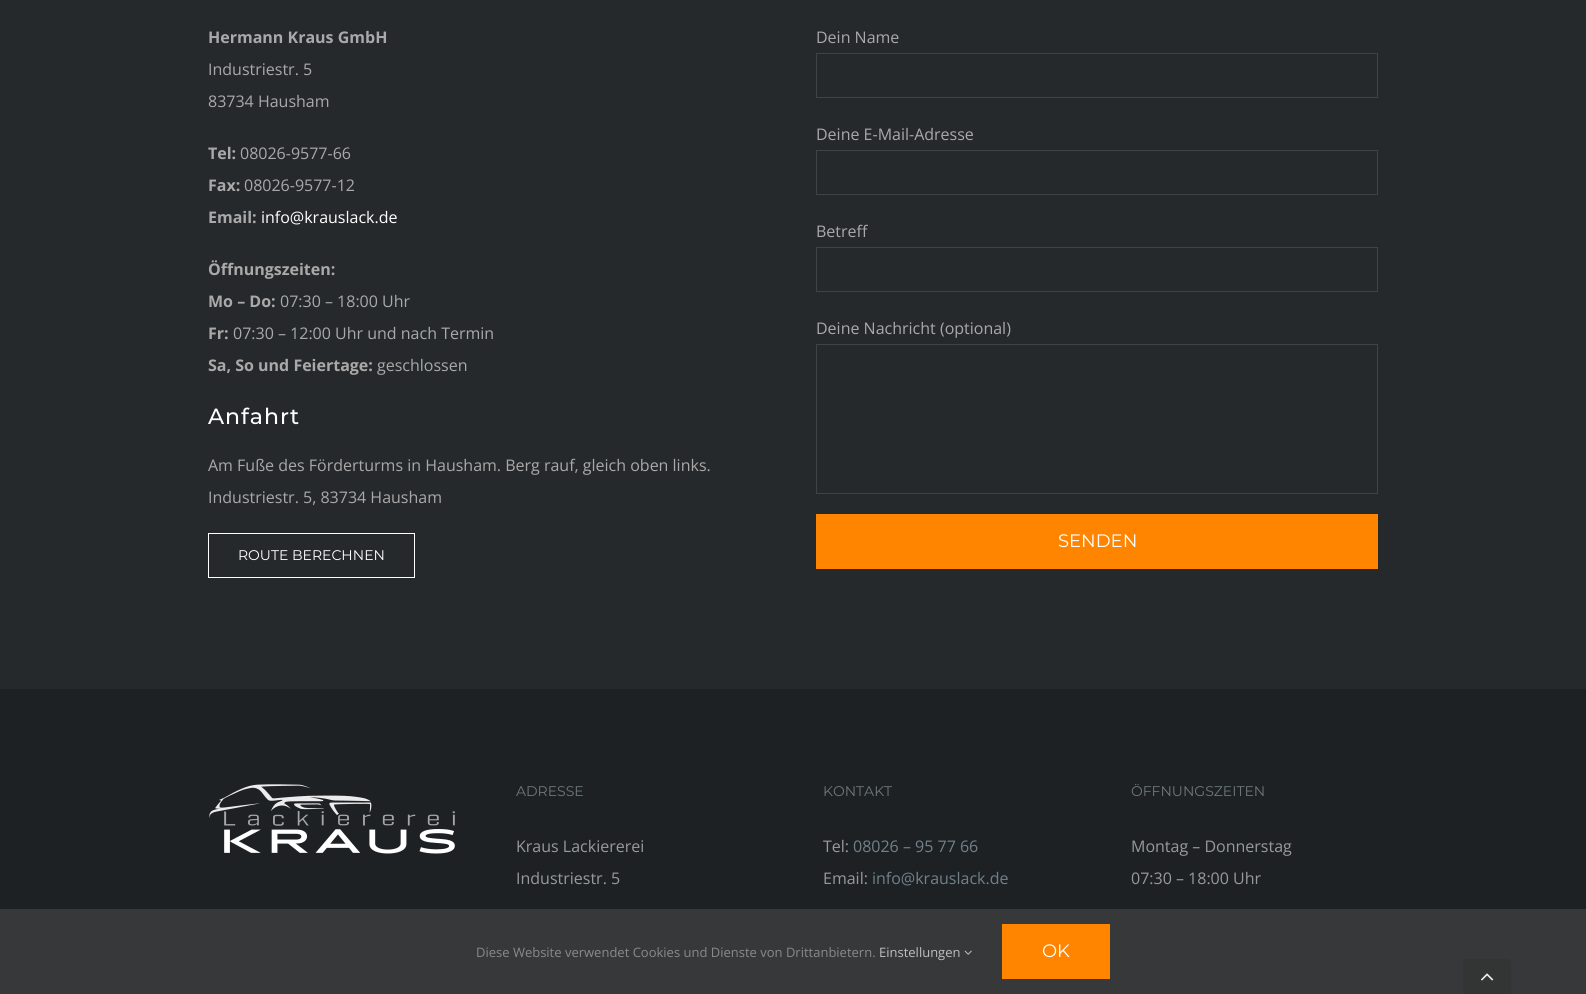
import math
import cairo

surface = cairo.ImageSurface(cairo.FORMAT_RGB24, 1586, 994)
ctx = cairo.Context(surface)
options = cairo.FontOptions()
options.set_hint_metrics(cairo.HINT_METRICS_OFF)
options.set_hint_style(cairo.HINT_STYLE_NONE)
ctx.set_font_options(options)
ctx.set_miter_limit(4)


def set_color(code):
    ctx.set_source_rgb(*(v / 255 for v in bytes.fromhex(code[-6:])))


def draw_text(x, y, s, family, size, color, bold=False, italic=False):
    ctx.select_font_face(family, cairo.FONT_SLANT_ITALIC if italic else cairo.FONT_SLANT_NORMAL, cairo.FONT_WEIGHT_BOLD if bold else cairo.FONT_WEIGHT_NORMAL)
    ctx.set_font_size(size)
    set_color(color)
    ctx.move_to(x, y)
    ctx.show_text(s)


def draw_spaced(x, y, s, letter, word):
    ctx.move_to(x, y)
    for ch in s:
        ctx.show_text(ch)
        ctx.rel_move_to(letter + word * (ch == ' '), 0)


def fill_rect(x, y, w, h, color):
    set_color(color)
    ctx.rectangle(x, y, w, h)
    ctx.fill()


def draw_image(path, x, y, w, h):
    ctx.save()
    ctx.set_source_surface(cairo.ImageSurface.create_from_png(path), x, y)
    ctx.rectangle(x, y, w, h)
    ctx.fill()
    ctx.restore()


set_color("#25292b")
ctx.paint()
draw_text(208, 43, "Hermann Kraus GmbH", "Open Sans", 16, "#aaa9a9", bold=True)
draw_text(208, 75, "Industriestr. 5", "Open Sans", 16, "#aaa9a9")
draw_text(208, 107, "83734 Hausham", "Open Sans", 16, "#aaa9a9")
draw_text(208, 159, "Tel:", "Open Sans", 16, "#aaa9a9", bold=True)
draw_text(240, 159, "08026-9577-66", "Open Sans", 16, "#aaa9a9")
draw_text(208, 191, "Fax:", "Open Sans", 16, "#aaa9a9", bold=True)
draw_text(244, 191, "08026-9577-12", "Open Sans", 16, "#aaa9a9")
draw_text(208, 223, "Email:", "Open Sans", 16, "#aaa9a9", bold=True)
draw_text(261, 223, "info@krauslack.de", "Open Sans", 16, "#ffffff")
draw_text(208, 275, "Öffnungszeiten:", "Open Sans", 16, "#aaa9a9", bold=True)
draw_text(208, 307, "Mo – Do:", "Open Sans", 16, "#aaa9a9", bold=True)
draw_text(280, 307, "07:30 – 18:00 Uhr", "Open Sans", 16, "#aaa9a9")
draw_text(208, 339, "Fr:", "Open Sans", 16, "#aaa9a9", bold=True)
draw_text(233, 339, "07:30 – 12:00 Uhr und nach Termin", "Open Sans", 16, "#aaa9a9")
draw_text(208, 371, "Sa, So und Feiertage:", "Open Sans", 16, "#aaa9a9", bold=True)
draw_text(377, 371, "geschlossen", "Open Sans", 16, "#aaa9a9")
ctx.select_font_face("Montserrat Medium")
ctx.set_font_size(22)
set_color("#ffffff")
draw_spaced(208, 424, "Anfahrt", 1, 0)
draw_text(208, 471, "Am Fuße des Förderturms in Hausham. Berg rauf, gleich oben links.", "Open Sans", 16, "#aaa9a9")
draw_text(208, 503, "Industriestr. 5, 83734 Hausham", "Open Sans", 16, "#aaa9a9")
ctx.rectangle(208.5, 533.5, 206, 44)
set_color("#ffffff")
ctx.set_line_width(1)
ctx.stroke()
draw_text(238, 560, "ROUTE BERECHNEN", "Montserrat", 14, "#ffffff")
draw_text(816, 43, "Dein Name", "Open Sans", 16, "#aaa9a9")
ctx.rectangle(816.5, 53.5, 561, 44)
set_color("#3e4346")
ctx.stroke()
draw_text(816, 140, "Deine E-Mail-Adresse", "Open Sans", 16, "#aaa9a9")
ctx.rectangle(816.5, 150.5, 561, 44)
set_color("#3e4346")
ctx.stroke()
draw_text(816, 237, "Betreff", "Open Sans", 16, "#aaa9a9")
ctx.rectangle(816.5, 247.5, 561, 44)
set_color("#3e4346")
ctx.stroke()
draw_text(816, 334, "Deine Nachricht (optional)", "Open Sans", 16, "#aaa9a9")
ctx.rectangle(816.5, 344.5, 561, 149)
set_color("#3e4346")
ctx.stroke()
fill_rect(816, 514, 562, 55, "#ff8400")
draw_text(1058, 547, "SENDEN", "Montserrat", 18, "#ffffff")
fill_rect(0, 689, 1586, 220, "#1e2123")
draw_image("assets/img1.png", 209, 784, 246, 70)
draw_text(516, 796, "ADRESSE", "Montserrat", 14, "#6c777b")
draw_text(516, 852, "Kraus Lackiererei", "Open Sans", 16, "#999999")
draw_text(516, 884, "Industriestr. 5", "Open Sans", 16, "#999999")
draw_text(823, 796, "KONTAKT", "Montserrat", 14, "#6c777b")
draw_text(823, 852, "Tel:", "Open Sans", 16, "#999999")
draw_text(853, 852, "08026 – 95 77 66", "Open Sans", 16, "#70818c")
draw_text(823, 884, "Email:", "Open Sans", 16, "#999999")
draw_text(872, 884, "info@krauslack.de", "Open Sans", 16, "#70818c")
draw_text(1131, 796, "ÖFFNUNGSZEITEN", "Montserrat", 14, "#6c777b")
draw_text(1131, 852, "Montag – Donnerstag", "Open Sans", 16, "#999999")
draw_text(1131, 884, "07:30 – 18:00 Uhr", "Open Sans", 16, "#999999")
fill_rect(0, 909, 1586, 85, "#363839")
draw_text(476, 957, "Diese Website verwendet Cookies und Dienste von Drittanbietern.", "Open Sans", 13, "#8c8989")
draw_text(879, 957, "Einstellungen", "Open Sans", 13, "#bfbfbf")
draw_image("assets/img2.png", 964, 950, 8, 5)
fill_rect(1002, 924, 108, 55, "#ff8400")
draw_text(1042, 957, "OK", "Montserrat", 18, "#ffffff")
set_color("#333434")
ctx.new_path()
ctx.move_to(1467, 959)
ctx.line_to(1507, 959)
ctx.curve_to(1509, 959, 1511, 961, 1511, 963)
ctx.line_to(1511, 994)
ctx.line_to(1463, 994)
ctx.line_to(1463, 963)
ctx.curve_to(1463, 961, 1465, 959, 1467, 959)
ctx.close_path()
ctx.fill()
draw_image("assets/img3.png", 1481, 973, 13, 8)
surface.write_to_png("output.png")
